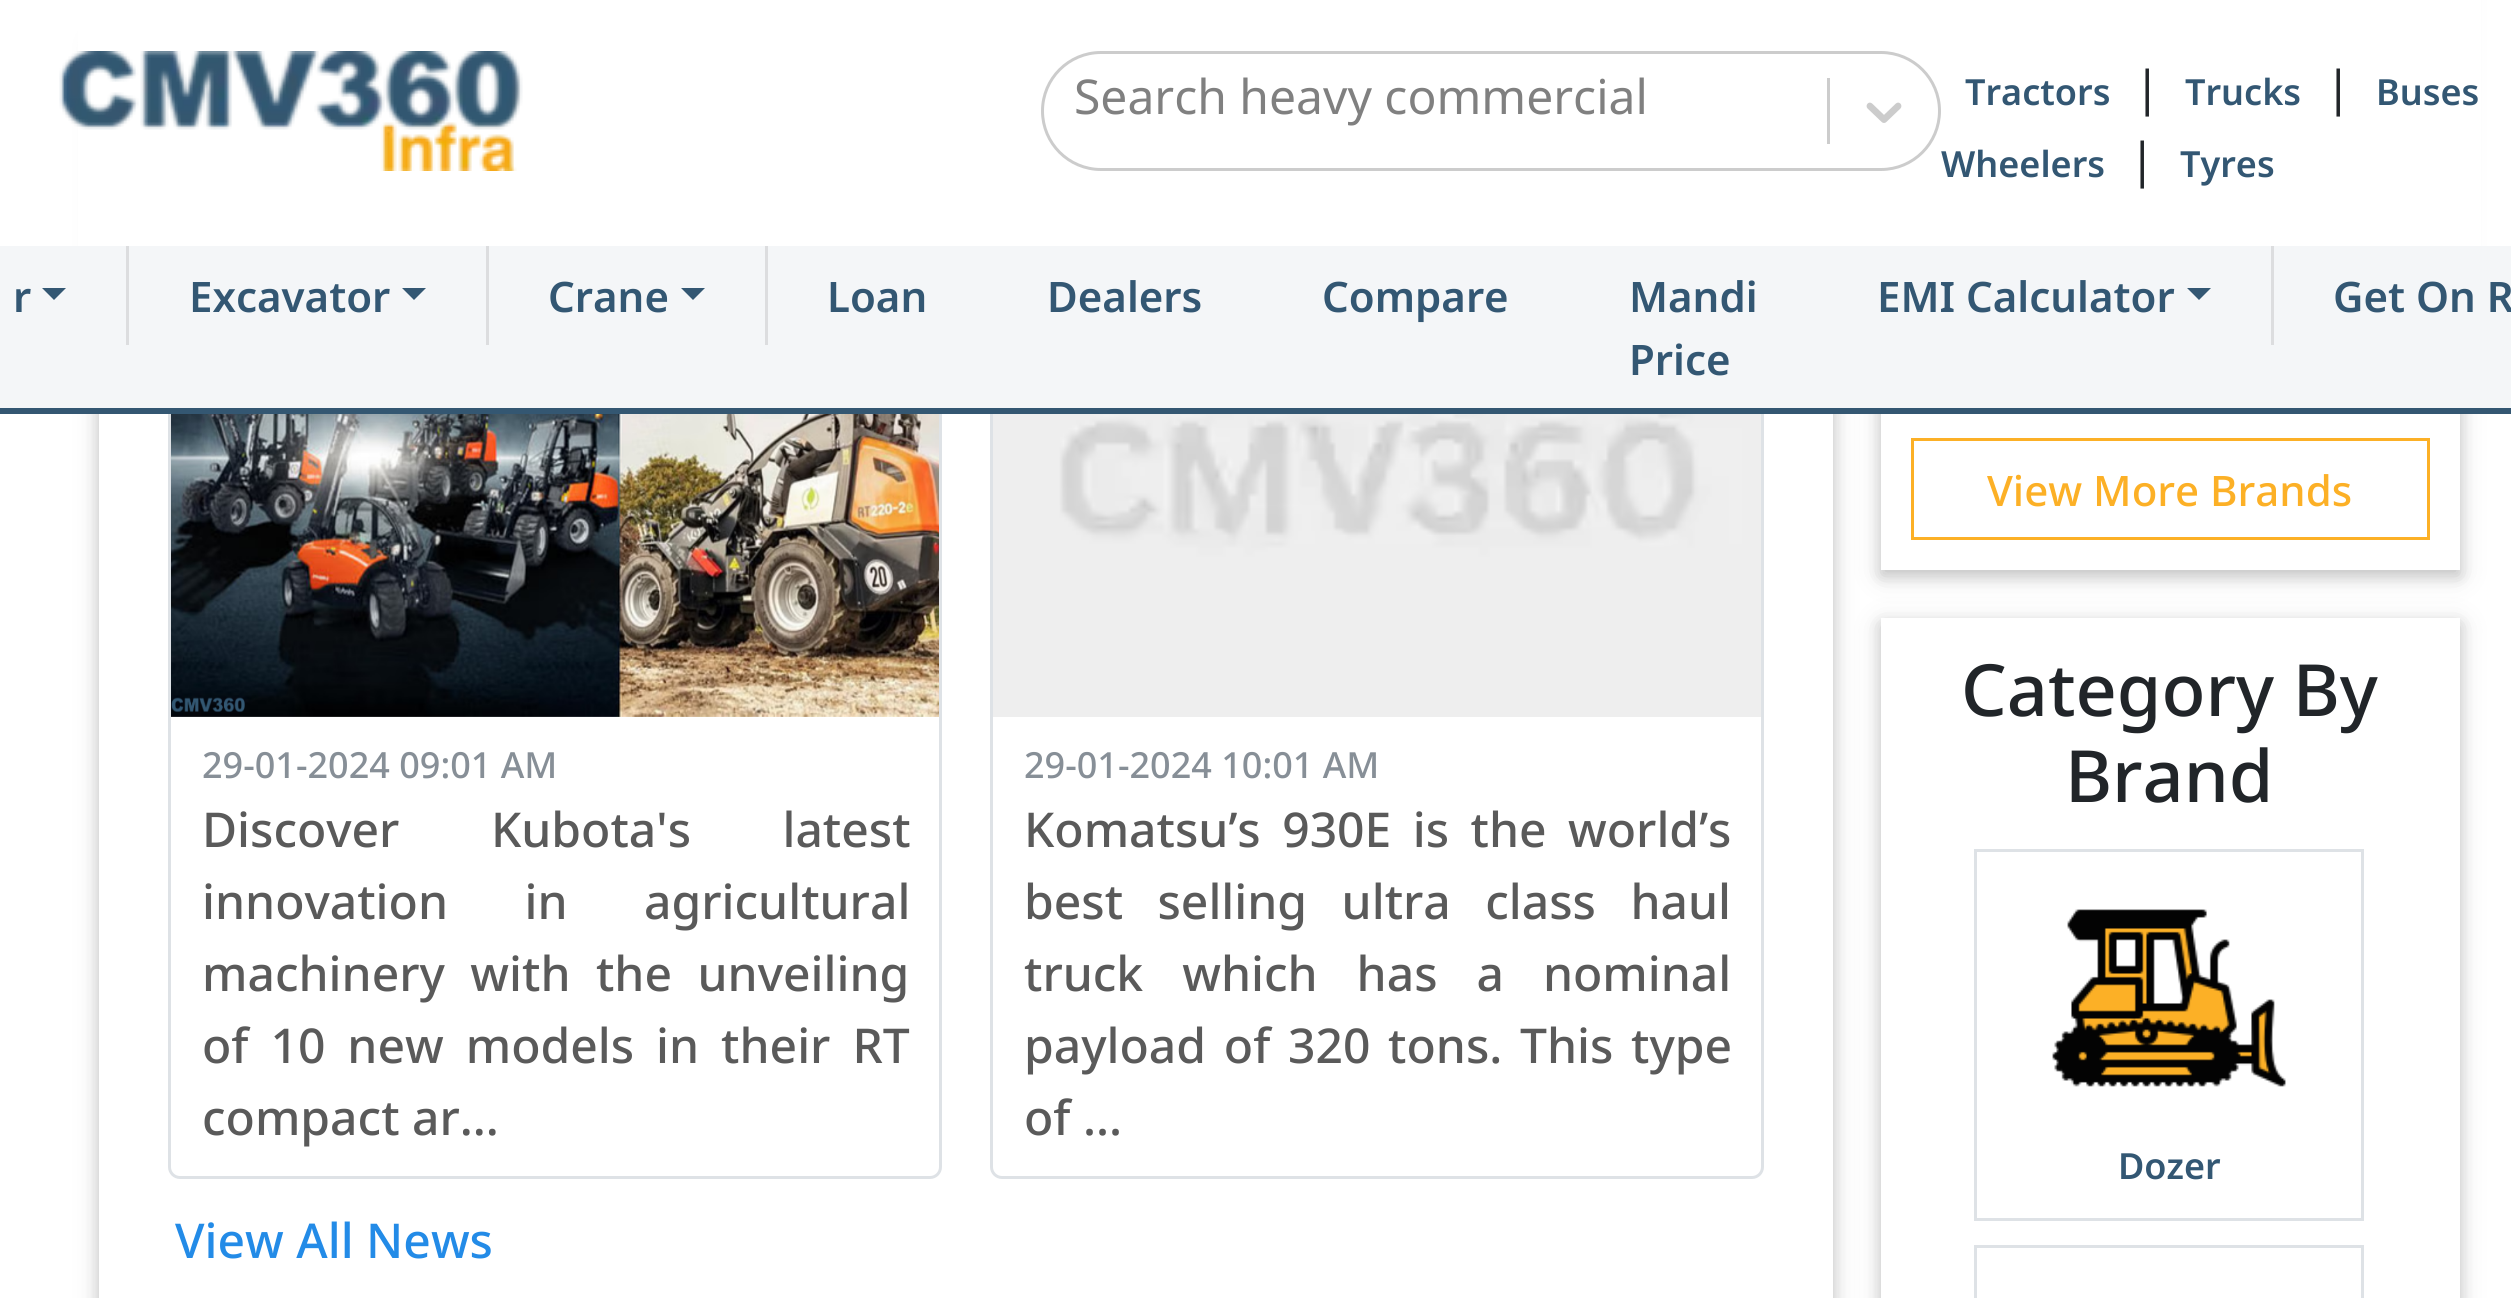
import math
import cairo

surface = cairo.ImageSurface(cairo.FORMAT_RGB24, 2511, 1298)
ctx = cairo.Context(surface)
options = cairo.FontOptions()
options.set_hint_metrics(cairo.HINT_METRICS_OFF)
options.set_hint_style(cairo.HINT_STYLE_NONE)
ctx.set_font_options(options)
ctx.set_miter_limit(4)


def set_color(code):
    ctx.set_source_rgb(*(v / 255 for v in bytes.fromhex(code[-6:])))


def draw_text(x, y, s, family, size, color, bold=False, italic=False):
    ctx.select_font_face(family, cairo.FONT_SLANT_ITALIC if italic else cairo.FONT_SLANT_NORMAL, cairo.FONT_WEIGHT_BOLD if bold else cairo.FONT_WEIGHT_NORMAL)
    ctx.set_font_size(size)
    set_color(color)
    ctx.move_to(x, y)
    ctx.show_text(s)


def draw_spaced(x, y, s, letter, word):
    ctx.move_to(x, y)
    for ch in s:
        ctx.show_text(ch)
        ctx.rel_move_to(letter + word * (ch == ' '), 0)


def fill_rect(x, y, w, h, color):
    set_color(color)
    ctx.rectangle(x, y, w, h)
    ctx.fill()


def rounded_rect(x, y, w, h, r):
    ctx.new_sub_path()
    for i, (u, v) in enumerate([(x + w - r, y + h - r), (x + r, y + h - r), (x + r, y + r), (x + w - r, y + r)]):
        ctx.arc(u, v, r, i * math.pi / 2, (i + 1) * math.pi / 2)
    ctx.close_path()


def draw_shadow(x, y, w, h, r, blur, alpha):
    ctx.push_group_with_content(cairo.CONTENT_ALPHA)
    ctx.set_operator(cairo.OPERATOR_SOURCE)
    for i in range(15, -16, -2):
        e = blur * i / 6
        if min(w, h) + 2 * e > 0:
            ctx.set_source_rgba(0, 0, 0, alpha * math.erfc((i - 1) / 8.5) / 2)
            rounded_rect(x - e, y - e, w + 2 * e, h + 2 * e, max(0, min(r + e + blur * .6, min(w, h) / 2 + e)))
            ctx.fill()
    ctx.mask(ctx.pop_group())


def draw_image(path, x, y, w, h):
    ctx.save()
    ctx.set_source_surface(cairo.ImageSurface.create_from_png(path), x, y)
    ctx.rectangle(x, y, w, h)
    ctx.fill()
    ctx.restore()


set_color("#ffffff")
ctx.paint()
ctx.save()
ctx.set_fill_rule(cairo.FILL_RULE_EVEN_ODD)
ctx.new_path()
ctx.move_to(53, 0)
ctx.line_to(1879, 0)
ctx.line_to(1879, 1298)
ctx.line_to(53, 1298)
ctx.close_path()
ctx.move_to(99, 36)
ctx.line_to(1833, 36)
ctx.line_to(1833, 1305)
ctx.line_to(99, 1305)
ctx.close_path()
ctx.clip()
set_color("#000000")
draw_shadow(99, 42, 1734, 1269, 0, 15, 0.12)
ctx.restore()
ctx.save()
ctx.set_fill_rule(cairo.FILL_RULE_EVEN_ODD)
ctx.new_path()
ctx.move_to(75, 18)
ctx.line_to(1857, 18)
ctx.line_to(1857, 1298)
ctx.line_to(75, 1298)
ctx.close_path()
ctx.move_to(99, 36)
ctx.line_to(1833, 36)
ctx.line_to(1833, 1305)
ctx.line_to(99, 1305)
ctx.close_path()
ctx.clip()
set_color("#000000")
draw_shadow(99, 42, 1734, 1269, 0, 7.5, 0.16)
ctx.restore()
rounded_rect(169.5, 202.5, 771, 975, 10.5)
set_color("#dee2e6")
ctx.set_line_width(3)
ctx.stroke()
rounded_rect(991.5, 202.5, 771, 975, 10.5)
ctx.stroke()
ctx.save()
ctx.set_fill_rule(cairo.FILL_RULE_EVEN_ODD)
ctx.new_path()
ctx.move_to(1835, 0)
ctx.line_to(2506, 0)
ctx.line_to(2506, 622)
ctx.line_to(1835, 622)
ctx.close_path()
ctx.move_to(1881, -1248)
ctx.line_to(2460, -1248)
ctx.line_to(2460, 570)
ctx.line_to(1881, 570)
ctx.close_path()
ctx.clip()
set_color("#000000")
draw_shadow(1881, -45, 579, 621, 0, 15, 0.12)
ctx.restore()
ctx.save()
ctx.set_fill_rule(cairo.FILL_RULE_EVEN_ODD)
ctx.new_path()
ctx.move_to(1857, 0)
ctx.line_to(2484, 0)
ctx.line_to(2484, 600)
ctx.line_to(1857, 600)
ctx.close_path()
ctx.move_to(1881, -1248)
ctx.line_to(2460, -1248)
ctx.line_to(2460, 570)
ctx.line_to(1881, 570)
ctx.close_path()
ctx.clip()
set_color("#000000")
draw_shadow(1881, -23, 579, 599, 0, 7.5, 0.16)
ctx.restore()
fill_rect(78, 0, 2403, 246, "#ffffff")
fill_rect(0, 408, 2511, 6, "#345772")
draw_image("assets/img1.png", 59, 51, 464, 120)
rounded_rect(1042.5, 52.5, 897, 117, 58.5)
set_color("#cccccc")
ctx.stroke()
draw_text(1074, 114, "Search heavy commercial", "Noto Sans", 48, "#808080")
fill_rect(1827, 78, 3, 66, "#cccccc")
draw_image("assets/img2.png", 1866, 102, 36, 21)
draw_text(1965, 105, "Tractors", "Noto Sans SemiBold", 36, "#335773")
draw_text(2134, 105, "|", "Noto Sans", 48, "#212529")
draw_text(2185, 105, "Trucks", "Noto Sans SemiBold", 36, "#335773")
draw_text(2325, 105, "|", "Noto Sans", 48, "#212529")
draw_text(2376, 105, "Buses", "Noto Sans SemiBold", 36, "#335773")
draw_text(1941, 177, "Wheelers", "Noto Sans SemiBold", 36, "#335773")
draw_text(2129, 177, "|", "Noto Sans", 48, "#212529")
draw_text(2180, 177, "Tyres", "Noto Sans SemiBold", 36, "#335773")
fill_rect(0, 246, 2511, 162, "#f4f6f8")
fill_rect(126, 246, 3, 99, "#dcdddf")
draw_text(13, 312, "r", "Noto Sans SemiBold", 42, "#335773")
ctx.new_path()
ctx.move_to(42, 288)
ctx.line_to(66, 288)
ctx.line_to(54, 300)
ctx.close_path()
ctx.fill()
fill_rect(486, 246, 3, 99, "#dcdddf")
draw_text(189, 312, "Excavator", "Noto Sans SemiBold", 42, "#335773")
ctx.new_path()
ctx.move_to(402, 288)
ctx.line_to(426, 288)
ctx.line_to(414, 300)
ctx.close_path()
ctx.fill()
fill_rect(765, 246, 3, 99, "#dcdddf")
draw_text(548, 312, "Crane", "Noto Sans SemiBold", 42, "#335773")
ctx.new_path()
ctx.move_to(681, 288)
ctx.line_to(705, 288)
ctx.line_to(693, 300)
ctx.close_path()
ctx.fill()
draw_text(827, 312, "Loan", "Noto Sans SemiBold", 42, "#335773")
draw_text(1047, 312, "Dealers", "Noto Sans SemiBold", 42, "#335773")
draw_text(1322, 312, "Compare", "Noto Sans SemiBold", 42, "#335773")
draw_text(1629, 312, "Mandi", "Noto Sans SemiBold", 42, "#335773")
draw_text(1629, 375, "Price", "Noto Sans SemiBold", 42, "#335773")
fill_rect(2271, 246, 3, 99, "#dcdddf")
draw_text(1877, 312, "EMI Calculator", "Noto Sans SemiBold", 42, "#335773")
ctx.new_path()
ctx.move_to(2187, 288)
ctx.line_to(2211, 288)
ctx.line_to(2199, 300)
ctx.close_path()
ctx.fill()
draw_text(2333, 312, "Get On R", "Noto Sans SemiBold", 42, "#335773")
draw_image("assets/img3.png", 171, 414, 768, 303)
draw_text(202, 778, "29-01-2024 09:01 AM", "Noto Sans Medium", 36, "#878f97")
ctx.set_font_size(48)
set_color("#5a5a5a")
draw_spaced(202, 847, "Discover Kubota's latest", 0, 79)
draw_spaced(202, 919, "innovation in agricultural", 0, 64)
draw_spaced(202, 991, "machinery with the unveiling", 0, 13)
draw_spaced(202, 1063, "of 10 new models in their RT", 0, 9.5)
draw_text(202, 1135, "compact ar...", "Noto Sans Medium", 48, "#5a5a5a")
draw_image("assets/img4.png", 993, 414, 768, 303)
draw_text(1024, 778, "29-01-2024 10:01 AM", "Noto Sans Medium", 36, "#878f97")
ctx.set_font_size(48)
set_color("#5a5a5a")
draw_spaced(1024, 847, "Komatsu’s 930E is the world’s", 0, 9)
draw_spaced(1024, 919, "best selling ultra class haul", 0, 22)
draw_spaced(1024, 991, "truck which has a nominal", 0, 26.5)
draw_spaced(1024, 1063, "payload of 320 tons. This type", 0, 5.25)
draw_text(1024, 1135, "of ...", "Noto Sans Medium", 48, "#5a5a5a")
draw_text(175, 1258, "View All News", "Noto Sans Medium", 48, "#238be7")
ctx.rectangle(1912.5, 439.5, 516, 99)
set_color("#fcb026")
ctx.stroke()
draw_text(1987, 506, "View More Brands", "Noto Sans Medium", 42, "#fcb026")
ctx.save()
ctx.set_fill_rule(cairo.FILL_RULE_EVEN_ODD)
ctx.new_path()
ctx.move_to(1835, 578)
ctx.line_to(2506, 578)
ctx.line_to(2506, 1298)
ctx.line_to(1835, 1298)
ctx.close_path()
ctx.move_to(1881, 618)
ctx.line_to(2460, 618)
ctx.line_to(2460, 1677)
ctx.line_to(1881, 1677)
ctx.close_path()
ctx.clip()
set_color("#000000")
draw_shadow(1881, 624, 579, 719, 0, 15, 0.12)
ctx.restore()
ctx.save()
ctx.set_fill_rule(cairo.FILL_RULE_EVEN_ODD)
ctx.new_path()
ctx.move_to(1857, 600)
ctx.line_to(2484, 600)
ctx.line_to(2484, 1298)
ctx.line_to(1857, 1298)
ctx.close_path()
ctx.move_to(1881, 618)
ctx.line_to(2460, 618)
ctx.line_to(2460, 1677)
ctx.line_to(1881, 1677)
ctx.close_path()
ctx.clip()
set_color("#000000")
draw_shadow(1881, 624, 579, 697, 0, 7.5, 0.16)
ctx.restore()
draw_text(1961, 716, "Category By", "Noto Sans Medium", 72, "#212529")
draw_text(2065, 802, "Brand", "Noto Sans Medium", 72, "#212529")
ctx.rectangle(1975.5, 850.5, 387, 369)
set_color("#dee2e6")
ctx.stroke()
draw_image("assets/img5.png", 2052, 909, 234, 178)
draw_text(2118, 1179, "Dozer", "Noto Sans SemiBold", 36, "#335773")
ctx.rectangle(1975.5, 1246.5, 387, 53)
set_color("#dee2e6")
ctx.stroke()
surface.write_to_png("output.png")
